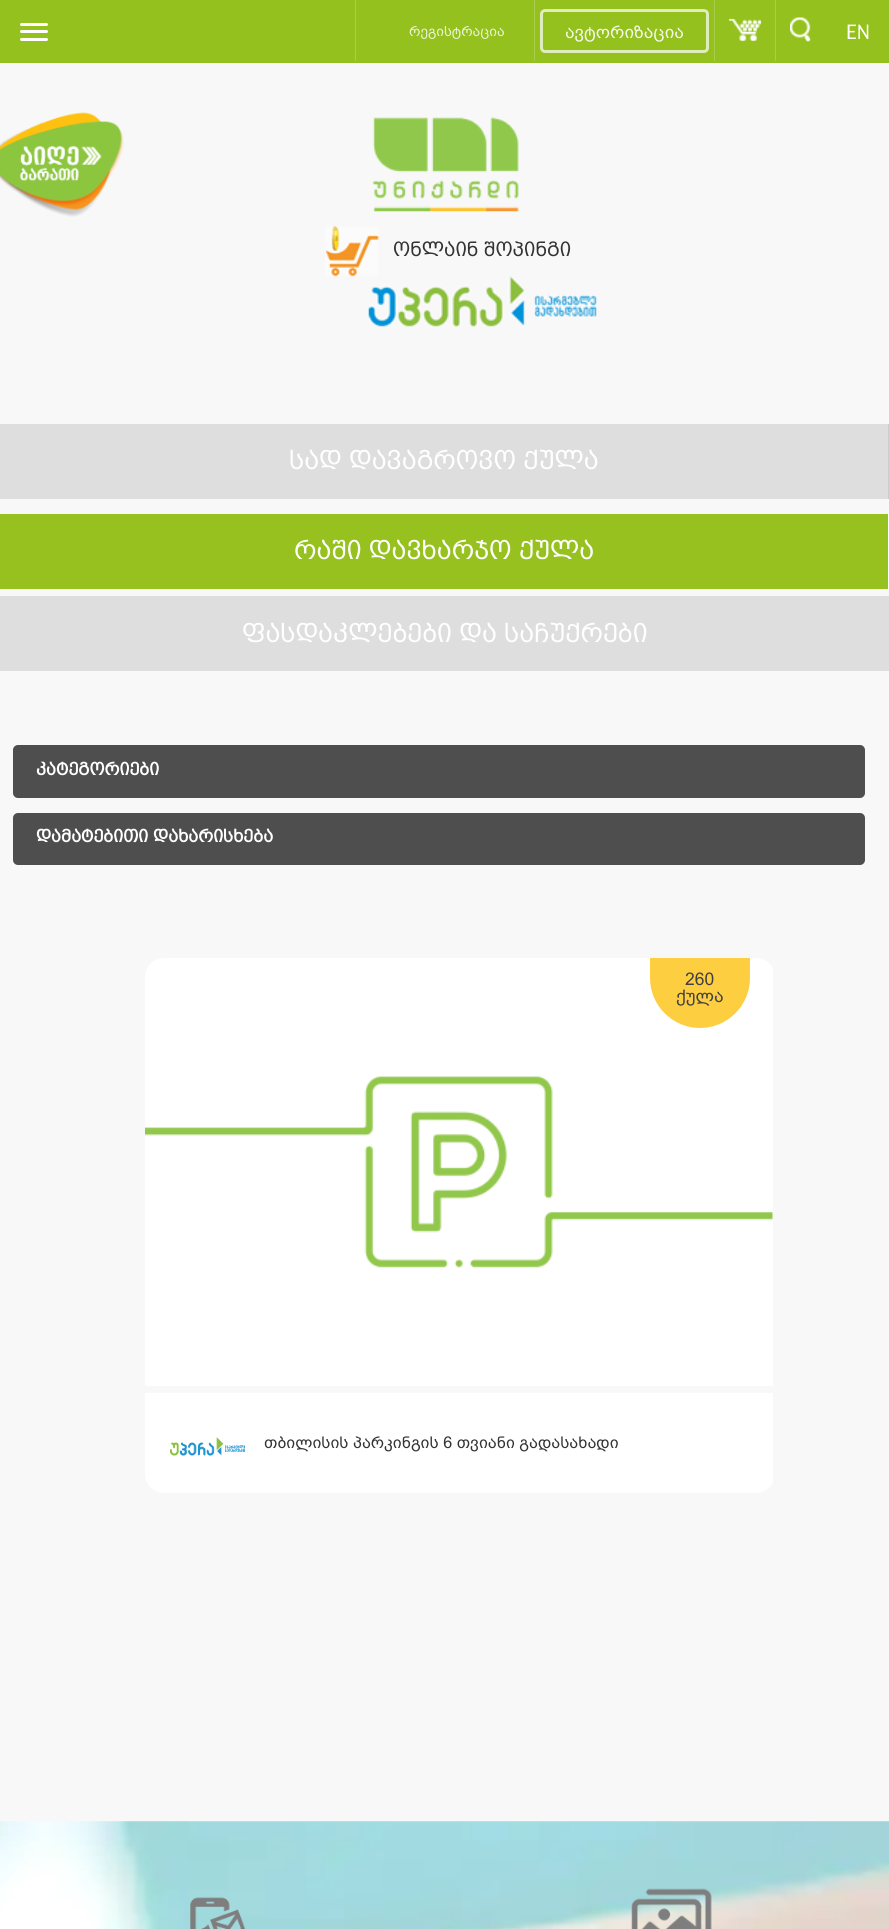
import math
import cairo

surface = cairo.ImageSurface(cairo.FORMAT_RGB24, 889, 1929)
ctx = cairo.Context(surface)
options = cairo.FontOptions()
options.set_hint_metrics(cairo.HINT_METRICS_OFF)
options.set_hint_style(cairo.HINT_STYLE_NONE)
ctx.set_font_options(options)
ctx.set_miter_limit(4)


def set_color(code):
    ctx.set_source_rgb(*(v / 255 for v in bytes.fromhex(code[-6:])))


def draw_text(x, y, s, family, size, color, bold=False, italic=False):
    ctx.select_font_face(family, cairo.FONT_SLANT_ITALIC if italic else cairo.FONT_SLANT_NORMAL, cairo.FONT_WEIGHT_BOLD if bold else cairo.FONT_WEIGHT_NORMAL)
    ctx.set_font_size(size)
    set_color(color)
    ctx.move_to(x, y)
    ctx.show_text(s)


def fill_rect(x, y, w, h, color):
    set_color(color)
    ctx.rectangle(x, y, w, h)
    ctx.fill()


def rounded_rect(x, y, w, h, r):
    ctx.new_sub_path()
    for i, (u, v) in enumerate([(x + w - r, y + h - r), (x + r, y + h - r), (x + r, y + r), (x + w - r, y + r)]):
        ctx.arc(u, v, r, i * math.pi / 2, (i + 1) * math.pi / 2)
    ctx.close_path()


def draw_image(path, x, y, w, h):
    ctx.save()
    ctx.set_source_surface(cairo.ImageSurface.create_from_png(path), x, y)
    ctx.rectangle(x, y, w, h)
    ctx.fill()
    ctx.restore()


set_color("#f8f8f8")
ctx.paint()
fill_rect(0, 0, 889, 63, "#95c11f")
set_color("#ffffff")
rounded_rect(20, 23, 28, 3, 1.5)
ctx.fill()
rounded_rect(20, 30, 28, 3, 1.5)
ctx.fill()
rounded_rect(20, 38, 28, 3, 1.5)
ctx.fill()
fill_rect(355, 0, 1, 61, "#aacd4c")
draw_text(409, 36, "რეგისტრაცია", "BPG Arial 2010", 14, "#eaf3d2")
fill_rect(534, 0, 1, 61, "#aacd4c")
rounded_rect(541.5, 10.5, 166, 41, 3.5)
set_color("#dfecbc")
ctx.set_line_width(3)
ctx.stroke()
draw_text(565, 38, "ავტორიზაცია", "BPG Arial 2010", 17.5, "#f4f9e9")
fill_rect(714, 0, 1, 61, "#aacd4c")
draw_image("assets/img1.png", 728, 18, 34, 24)
fill_rect(775, 0, 1, 61, "#aacd4c")
draw_image("assets/img2.png", 790, 17, 21, 25)
draw_text(846, 39, "EN", "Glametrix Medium", 30, "#ffffff")
draw_image("assets/img3.png", 372, 117, 147, 95)
draw_image("assets/img4.png", 325, 226, 54, 51)
draw_text(393, 256, "ონლაინ შოპინგი", "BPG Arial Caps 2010", 20, "#333333")
draw_image("assets/img5.png", 368, 276, 229, 51)
fill_rect(0, 424, 888, 75, "#dedede")
fill_rect(888, 424, 1, 75, "#cccccc")
draw_text(289, 469, "სად დავაგროვო ქულა", "BPG Arial Caps 2010", 26.25, "#ffffff")
fill_rect(0, 514, 888, 75, "#96c11f")
fill_rect(888, 514, 1, 75, "#ffffff")
draw_text(294, 559, "რაში დავხარჯო ქულა", "BPG Arial Caps 2010", 26.25, "#ffffff")
fill_rect(0, 596, 889, 75, "#dedede")
draw_text(242, 642, "ფასდაკლებები და საჩუქრები", "BPG Arial Caps 2010", 26.25, "#ffffff")
set_color("#4e4e4e")
rounded_rect(13, 745, 852, 53, 5)
ctx.fill()
draw_text(36, 775, "კატეგორიები", "BPG Arial Caps 2010", 17.5, "#ffffff", bold=True)
set_color("#4e4e4e")
rounded_rect(13, 813, 852, 52, 5)
ctx.fill()
draw_text(36, 842, "დამატებითი დახარისხება", "BPG Arial Caps 2010", 17.5, "#ffffff", bold=True)
ctx.save()
ctx.rectangle(118, 958, 655, 557)
ctx.clip()
rounded_rect(145, 958, 630, 535, 19)
ctx.fill()
ctx.restore()
fill_rect(145, 1386, 628, 7, "#f8f8f8")
set_color("#fece41")
ctx.new_path()
ctx.move_to(650, 958)
ctx.line_to(750, 958)
ctx.line_to(750, 978)
ctx.curve_to(750, 1005.5, 727.5, 1028, 700, 1028)
ctx.curve_to(672.5, 1028, 650, 1005.5, 650, 978)
ctx.close_path()
ctx.fill()
draw_text(685, 985, "260", "BPG Arial 2010", 17.5, "#404040")
draw_text(676, 1002, "ქულა", "BPG Arial 2010", 17.5, "#404040")
draw_image("assets/img6.png", 145, 1076, 628, 192)
draw_image("assets/img7.png", 170, 1437, 75, 19)
draw_text(264, 1448, "თბილისის პარკინგის 6 თვიანი გადასახადი", "BPG Arial 2010", 16.25, "#333333")
draw_image("assets/img8.png", 0, 1821, 889, 108)
draw_image("assets/img9.png", 190, 1897, 55, 32)
draw_image("assets/img10.png", 631, 1888, 81, 41)
draw_image("assets/img11.png", 0, 112, 124, 105)
surface.write_to_png("output.png")
